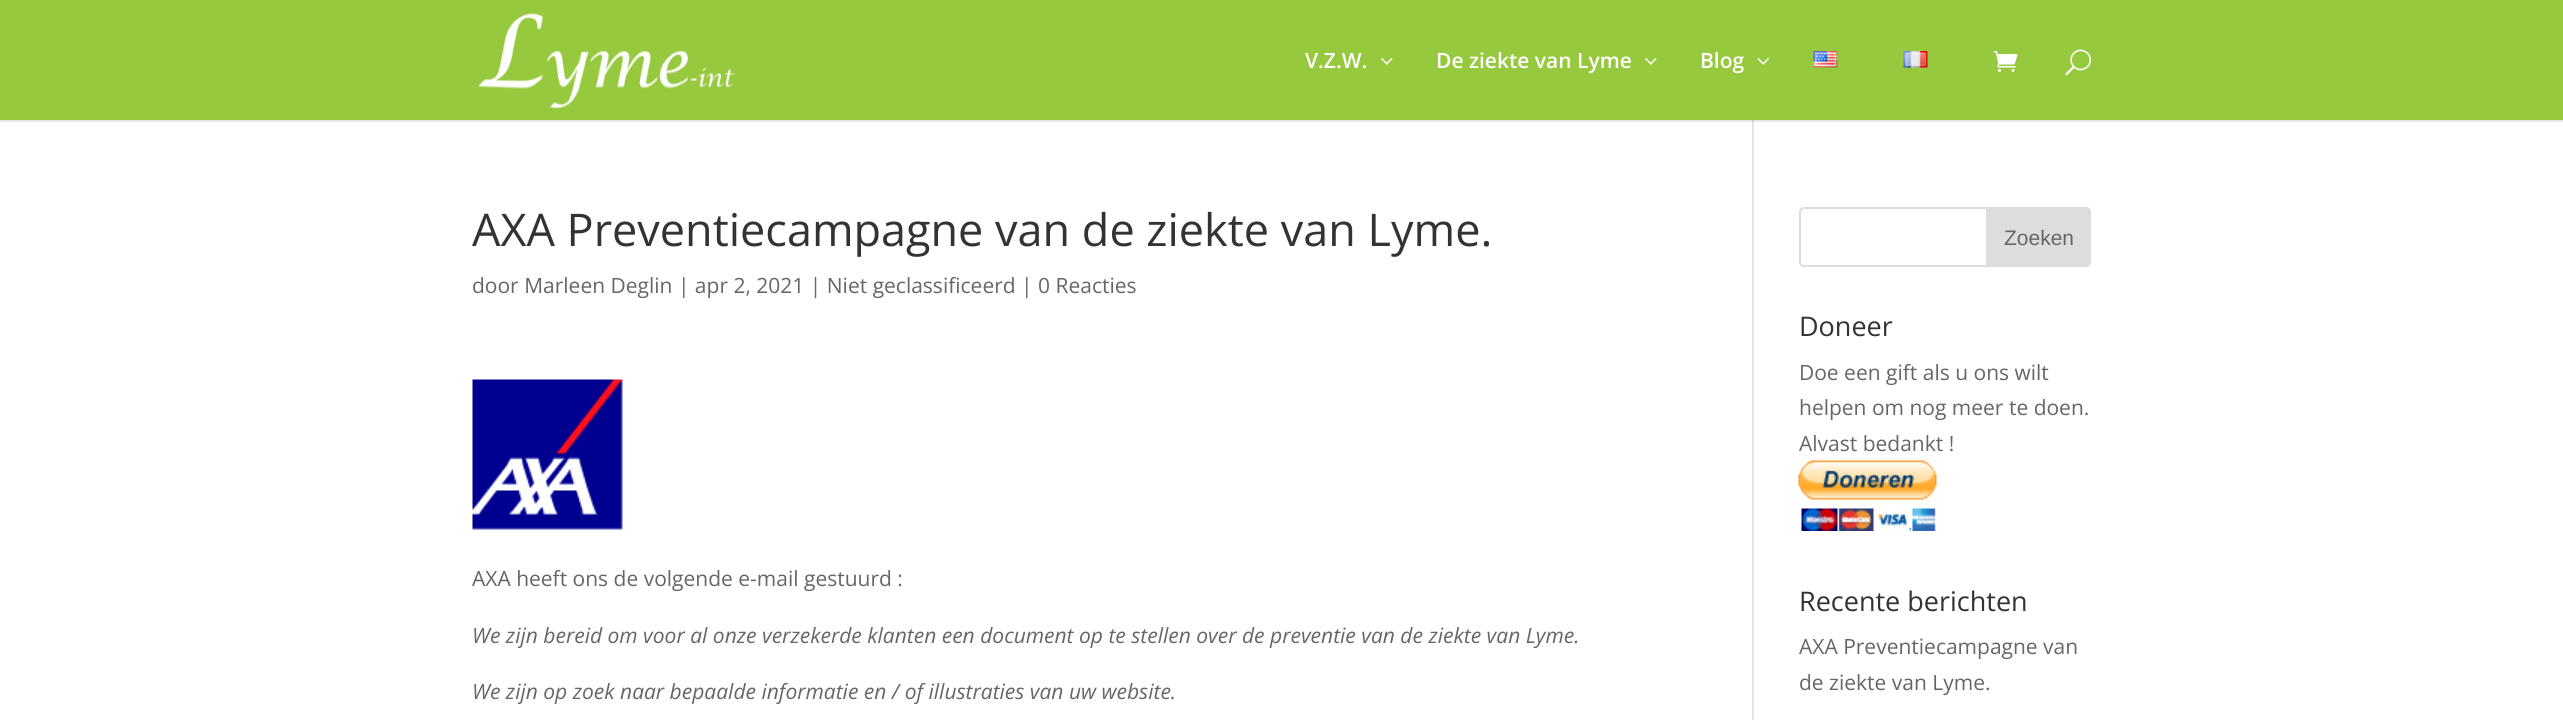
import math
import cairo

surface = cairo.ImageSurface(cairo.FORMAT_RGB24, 2563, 720)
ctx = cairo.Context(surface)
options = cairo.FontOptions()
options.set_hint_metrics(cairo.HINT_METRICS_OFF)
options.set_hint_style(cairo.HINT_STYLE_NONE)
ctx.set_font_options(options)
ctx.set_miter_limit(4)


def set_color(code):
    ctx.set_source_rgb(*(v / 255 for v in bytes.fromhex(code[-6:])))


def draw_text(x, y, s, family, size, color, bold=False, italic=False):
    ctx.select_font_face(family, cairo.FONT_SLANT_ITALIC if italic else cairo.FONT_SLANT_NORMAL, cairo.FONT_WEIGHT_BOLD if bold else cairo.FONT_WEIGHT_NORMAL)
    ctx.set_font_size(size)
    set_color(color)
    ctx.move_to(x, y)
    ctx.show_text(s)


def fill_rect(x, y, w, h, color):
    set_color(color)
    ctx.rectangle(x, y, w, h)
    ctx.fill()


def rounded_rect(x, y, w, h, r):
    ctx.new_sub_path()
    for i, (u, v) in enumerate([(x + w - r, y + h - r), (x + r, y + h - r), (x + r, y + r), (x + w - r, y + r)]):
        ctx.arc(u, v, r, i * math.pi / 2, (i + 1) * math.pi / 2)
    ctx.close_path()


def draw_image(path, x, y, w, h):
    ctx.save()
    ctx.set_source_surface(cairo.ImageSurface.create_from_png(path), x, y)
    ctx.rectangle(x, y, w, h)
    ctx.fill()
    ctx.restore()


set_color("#ffffff")
ctx.paint()
fill_rect(1752, 120, 2, 600, "#e2e2e2")
ctx.set_source_rgba(0, 0, 0, 0.1)
ctx.new_path()
ctx.move_to(0, 120)
ctx.line_to(0, 122)
ctx.line_to(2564, 122)
ctx.line_to(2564, 2)
ctx.line_to(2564, 120)
ctx.close_path()
ctx.fill()
fill_rect(0, 0, 2563, 120, "#96c93e")
draw_image("assets/img1.png", 478, 13, 257, 96)
draw_text(1305, 68, "V.Z.W.", "Open Sans SemiBold", 21, "#ffffff")
draw_image("assets/img2.png", 1381, 58, 12, 7)
draw_text(1436, 68, "De ziekte van Lyme", "Open Sans SemiBold", 21, "#ffffff")
draw_image("assets/img2.png", 1645, 58, 12, 7)
draw_text(1700, 68, "Blog", "Open Sans SemiBold", 21, "#ffffff")
draw_image("assets/img3.png", 1757, 58, 12, 7)
draw_image("assets/img4.png", 1813, 51, 25, 17)
draw_image("assets/img5.png", 1903, 51, 25, 17)
draw_image("assets/img6.png", 1993, 51, 25, 21)
draw_image("assets/img7.png", 2065, 49, 26, 27)
draw_text(472, 246, "AXA Preventiecampagne van de ziekte van Lyme.", "Open Sans", 45, "#333333")
draw_text(472, 293, "door Marleen Deglin | apr 2, 2021 | Niet geclassificeerd | 0 Reacties", "Open Sans", 21, "#666666")
draw_image("assets/img8.png", 472, 379, 151, 151)
draw_text(472, 586, "AXA heeft ons de volgende e-mail gestuurd :", "Open Sans", 21, "#666666")
draw_text(472, 643, "We zijn bereid om voor al onze verzekerde klanten een document op te stellen over de preventie van de ziekte van Lyme.", "Open Sans", 21, "#666666", italic=True)
draw_text(472, 699, "We zijn op zoek naar bepaalde informatie en / of illustraties van uw website.", "Open Sans", 21, "#666666", italic=True)
rounded_rect(1800, 208, 290, 58, 4)
set_color("#dddddd")
ctx.stroke()
ctx.new_path()
ctx.move_to(1987, 208)
ctx.line_to(2086, 208)
ctx.curve_to(2088, 208, 2090, 210, 2090, 212)
ctx.line_to(2090, 262)
ctx.curve_to(2090, 264, 2088, 266, 2086, 266)
ctx.line_to(1987, 266)
ctx.close_path()
ctx.fill_preserve()
ctx.stroke()
draw_text(2004, 245, "Zoeken", "Liberation Sans", 21, "#666666")
draw_text(1799, 336, "Doneer", "Open Sans", 27, "#333333")
draw_text(1799, 380, "Doe een gift als u ons wilt", "Open Sans", 21, "#666666")
draw_text(1799, 415, "helpen om nog meer te doen.", "Open Sans", 21, "#666666")
draw_text(1799, 451, "Alvast bedankt !", "Open Sans", 21, "#666666")
draw_image("assets/img9.png", 1798, 460, 139, 71)
draw_text(1799, 611, "Recente berichten", "Open Sans", 27, "#333333")
draw_text(1799, 654, "AXA Preventiecampagne van", "Open Sans", 21, "#666666")
draw_text(1799, 690, "de ziekte van Lyme.", "Open Sans", 21, "#666666")
surface.write_to_png("output.png")
